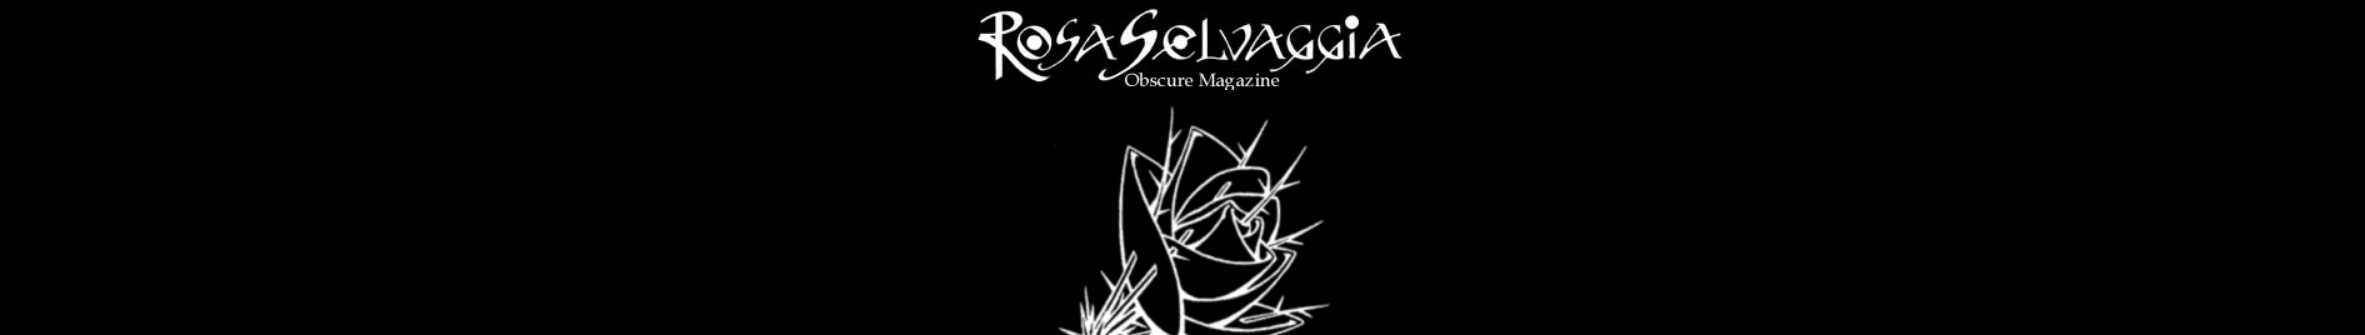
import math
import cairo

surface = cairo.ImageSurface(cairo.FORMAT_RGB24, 2365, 335)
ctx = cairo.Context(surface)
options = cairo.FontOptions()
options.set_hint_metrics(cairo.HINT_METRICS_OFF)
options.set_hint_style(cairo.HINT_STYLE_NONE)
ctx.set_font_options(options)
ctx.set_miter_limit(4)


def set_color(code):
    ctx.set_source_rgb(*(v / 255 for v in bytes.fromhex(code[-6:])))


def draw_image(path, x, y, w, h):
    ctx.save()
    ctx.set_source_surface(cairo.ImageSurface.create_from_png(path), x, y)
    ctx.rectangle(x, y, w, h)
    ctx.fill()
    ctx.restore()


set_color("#000000")
ctx.paint()
draw_image("assets/img1.png", 976, 7, 430, 83)
draw_image("assets/img2.png", 1054, 105, 277, 230)
surface.write_to_png("output.png")
